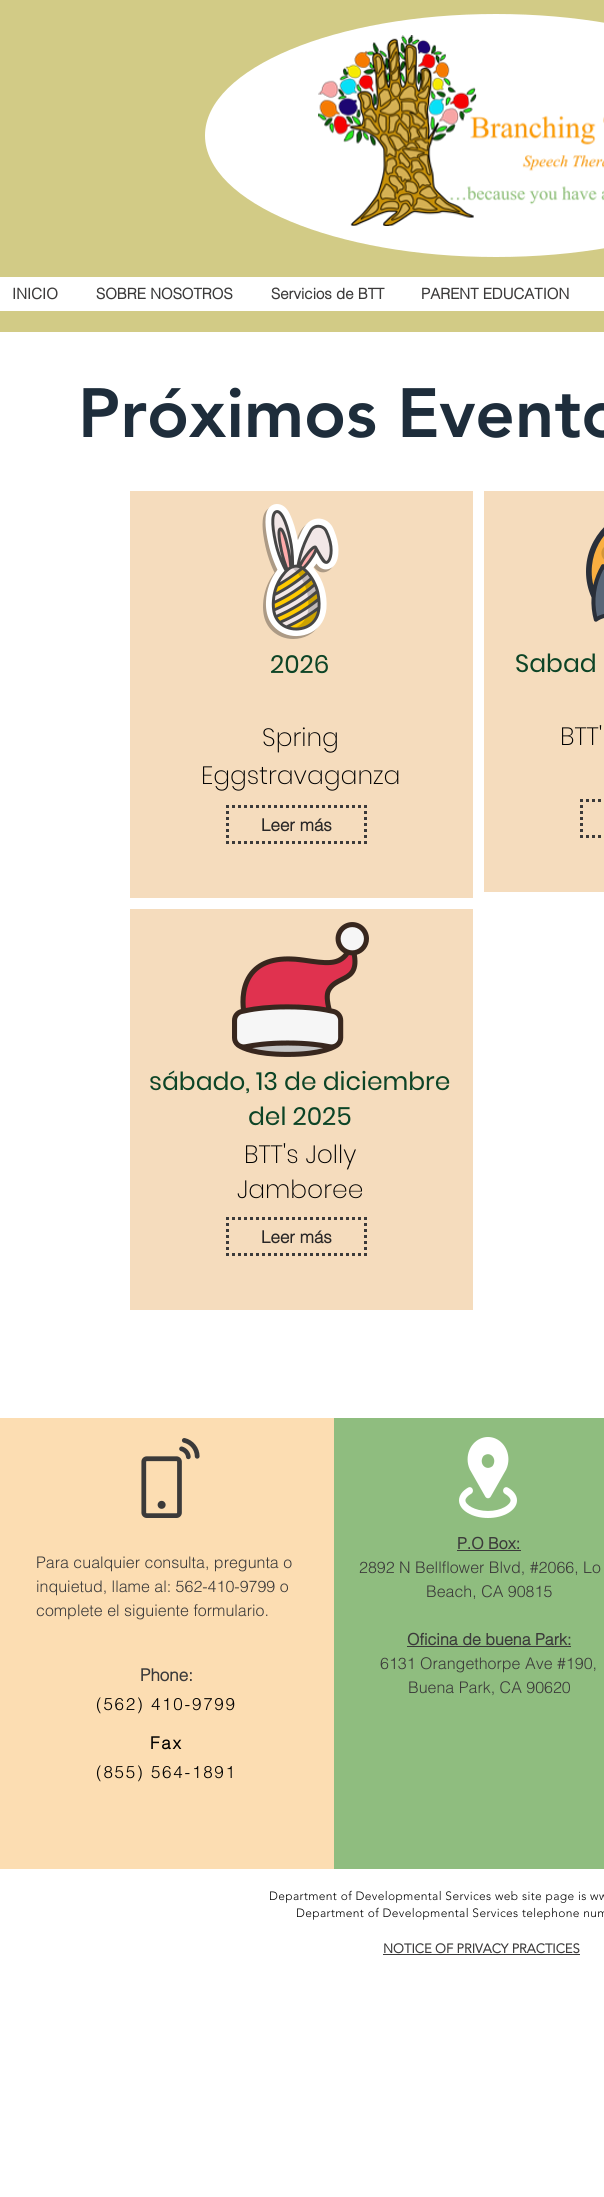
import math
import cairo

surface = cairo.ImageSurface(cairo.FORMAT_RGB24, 604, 2197)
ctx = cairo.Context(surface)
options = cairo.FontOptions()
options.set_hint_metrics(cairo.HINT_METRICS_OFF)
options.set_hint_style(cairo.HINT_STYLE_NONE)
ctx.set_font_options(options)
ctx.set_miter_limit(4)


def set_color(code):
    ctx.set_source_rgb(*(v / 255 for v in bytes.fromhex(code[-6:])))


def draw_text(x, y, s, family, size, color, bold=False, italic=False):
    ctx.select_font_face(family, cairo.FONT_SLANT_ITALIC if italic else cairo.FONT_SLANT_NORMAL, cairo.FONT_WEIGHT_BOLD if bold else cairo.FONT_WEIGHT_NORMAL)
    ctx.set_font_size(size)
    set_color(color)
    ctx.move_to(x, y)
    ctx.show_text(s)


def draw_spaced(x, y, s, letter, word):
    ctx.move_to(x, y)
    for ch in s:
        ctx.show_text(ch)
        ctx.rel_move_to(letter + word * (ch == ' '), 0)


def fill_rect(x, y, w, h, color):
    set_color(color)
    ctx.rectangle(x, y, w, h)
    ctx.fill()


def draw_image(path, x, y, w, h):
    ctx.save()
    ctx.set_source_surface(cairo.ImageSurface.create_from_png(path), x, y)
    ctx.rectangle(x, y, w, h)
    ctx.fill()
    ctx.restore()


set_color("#ffffff")
ctx.paint()
fill_rect(0, 0, 604, 332, "#d2cb86")
set_color("#ffffff")
ctx.new_path()
ctx.move_to(496, 14)
ctx.curve_to(656.5, 14, 787, 68.5, 787, 135.5)
ctx.curve_to(787, 202.5, 656.5, 257, 496, 257)
ctx.curve_to(335.5, 257, 205, 202.5, 205, 135.5)
ctx.curve_to(205, 68.5, 335.5, 14, 496, 14)
ctx.close_path()
ctx.fill()
draw_image("assets/img1.png", 318, 35, 286, 191)
fill_rect(0, 277, 604, 34, "#ffffff")
draw_text(12, 299, "INICIO", "helvetica", 15, "#3b3a3a", bold=True)
draw_text(96, 299, "SOBRE NOSOTROS", "helvetica", 15, "#3b3a3a", bold=True)
draw_text(271, 299, "Servicios de BTT", "helvetica", 15, "#3b3a3a", bold=True)
draw_text(421, 299, "PARENT EDUCATION", "helvetica", 15, "#3b3a3a", bold=True)
draw_text(78, 437, "Próximos Evento", "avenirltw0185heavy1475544 Black", 69, "#1e2d3b")
fill_rect(130, 491, 343, 407, "#f5dcbd")
draw_image("assets/img2.png", 262, 504, 77, 135)
draw_text(270, 673, "2026", "Poppins", 25, "#0c4426")
draw_text(262, 746, "Spring", "Poppins ExtraLight", 25, "#000000")
draw_text(201, 784, "Eggstravaganza", "Poppins ExtraLight", 25, "#000000")
ctx.new_path()
ctx.move_to(226, 806.5)
ctx.line_to(367, 806.5)
set_color("#3b3a3a")
ctx.set_line_width(3)
ctx.set_dash([3, 3])
ctx.stroke()
ctx.new_path()
ctx.move_to(365.5, 805)
ctx.line_to(365.5, 844)
ctx.stroke()
ctx.new_path()
ctx.move_to(226, 842.5)
ctx.line_to(367, 842.5)
ctx.stroke()
ctx.new_path()
ctx.move_to(227.5, 805)
ctx.line_to(227.5, 844)
ctx.stroke()
draw_text(261, 831, "Leer más", "helvetica", 17, "#282626", bold=True)
fill_rect(130, 909, 343, 401, "#f5dcbd")
draw_image("assets/img3.png", 232, 922, 137, 135)
draw_text(149, 1090, "sábado, 13 de diciembre", "Poppins", 25, "#0c4426")
draw_text(248, 1125, "del 2025", "Poppins", 25, "#0c4426")
draw_text(244, 1163, "BTT's Jolly", "Poppins ExtraLight", 25, "#000000")
draw_text(237, 1198, "Jamboree", "Poppins ExtraLight", 25, "#000000")
ctx.new_path()
ctx.move_to(226, 1218.5)
ctx.line_to(367, 1218.5)
set_color("#3b3a3a")
ctx.stroke()
ctx.new_path()
ctx.move_to(365.5, 1217)
ctx.line_to(365.5, 1256)
ctx.stroke()
ctx.new_path()
ctx.move_to(226, 1254.5)
ctx.line_to(367, 1254.5)
ctx.stroke()
ctx.new_path()
ctx.move_to(227.5, 1217)
ctx.line_to(227.5, 1256)
ctx.stroke()
draw_text(261, 1243, "Leer más", "helvetica", 17, "#282626", bold=True)
fill_rect(484, 491, 120, 401, "#f5dcbd")
draw_image("assets/img4.png", 586, 527, 18, 95)
draw_text(515, 672, "Sabad", "Poppins", 25, "#0c4426")
draw_text(560, 745, "BTT'", "Poppins ExtraLight", 25, "#000000")
ctx.new_path()
ctx.move_to(580, 800.5)
ctx.line_to(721, 800.5)
ctx.move_to(580, 836.5)
ctx.line_to(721, 836.5)
ctx.move_to(581.5, 799)
ctx.line_to(581.5, 838)
set_color("#3b3a3a")
ctx.stroke()
fill_rect(0, 1418, 334, 451, "#fcddb2")
draw_image("assets/img5.png", 141, 1438, 59, 80)
draw_text(36, 1568, "Para cualquier consulta, pregunta o", "helvetica Light", 16, "#3b3a3a")
draw_text(36, 1592, "inquietud, llame al: 562-410-9799 o", "helvetica Light", 16, "#3b3a3a")
draw_text(36, 1616, "complete el siguiente formulario.", "helvetica Light", 16, "#3b3a3a")
draw_text(140, 1681, "Phone:", "helvetica", 17, "#3b3a3a", bold=True)
ctx.select_font_face("helvetica Light")
set_color("#000000")
draw_spaced(96, 1710, "(562) 410-9799", 1.75, 0)
ctx.select_font_face("helvetica", cairo.FONT_SLANT_NORMAL, cairo.FONT_WEIGHT_BOLD)
draw_spaced(150, 1749, "Fax", 1.75, 0)
ctx.select_font_face("helvetica Light")
draw_spaced(96, 1778, "(855) 564-1891", 1.75, 0)
fill_rect(334, 1418, 270, 451, "#8fbd7f")
draw_image("assets/img6.png", 459, 1437, 58, 81)
draw_text(457, 1549, "P.O Box:", "helvetica", 16, "#3b3a3a", bold=True)
fill_rect(457, 1550, 64, 1, "#3b3a3a")
draw_text(359, 1573, "2892 N Bellflower Blvd, #2066, Lo", "helvetica Light", 16, "#3b3a3a")
draw_text(426, 1597, "Beach, CA 90815", "helvetica Light", 16, "#3b3a3a")
draw_text(407, 1645, "Oficina de buena Park:", "helvetica", 16, "#3b3a3a", bold=True)
fill_rect(407, 1646, 164, 1, "#3b3a3a")
draw_text(380, 1669, "6131 Orangethorpe Ave #190,", "helvetica Light", 16, "#3b3a3a")
draw_text(408, 1693, "Buena Park, CA 90620", "helvetica Light", 16, "#3b3a3a")
ctx.select_font_face("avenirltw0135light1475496 Light")
ctx.set_font_size(12)
set_color("#000000")
draw_spaced(269, 1900, "Department of Developmental Services web site page is ww", 0.35, 0)
draw_spaced(296, 1917, "Department of Developmental Services telephone num", 0.35, 0)
draw_text(383, 1953, "NOTICE OF PRIVACY PRACTICES", "avenirltw0135light1475496", 13, "#3b3a3a", bold=True)
fill_rect(383, 1954, 197, 1, "#3b3a3a")
surface.write_to_png("output.png")
